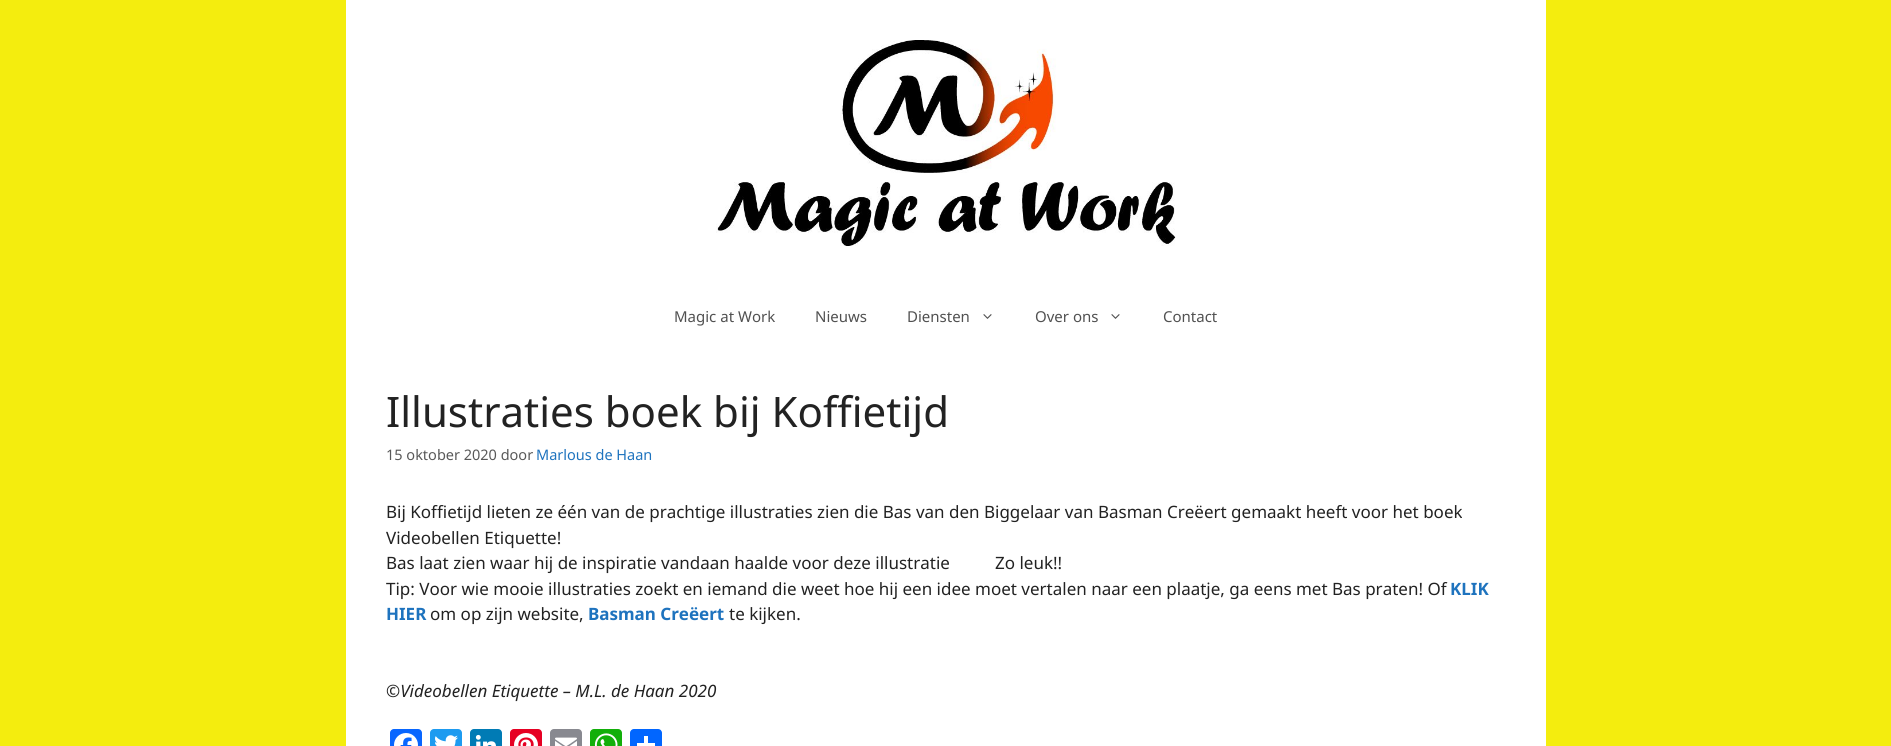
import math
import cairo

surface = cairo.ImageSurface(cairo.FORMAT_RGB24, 1891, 746)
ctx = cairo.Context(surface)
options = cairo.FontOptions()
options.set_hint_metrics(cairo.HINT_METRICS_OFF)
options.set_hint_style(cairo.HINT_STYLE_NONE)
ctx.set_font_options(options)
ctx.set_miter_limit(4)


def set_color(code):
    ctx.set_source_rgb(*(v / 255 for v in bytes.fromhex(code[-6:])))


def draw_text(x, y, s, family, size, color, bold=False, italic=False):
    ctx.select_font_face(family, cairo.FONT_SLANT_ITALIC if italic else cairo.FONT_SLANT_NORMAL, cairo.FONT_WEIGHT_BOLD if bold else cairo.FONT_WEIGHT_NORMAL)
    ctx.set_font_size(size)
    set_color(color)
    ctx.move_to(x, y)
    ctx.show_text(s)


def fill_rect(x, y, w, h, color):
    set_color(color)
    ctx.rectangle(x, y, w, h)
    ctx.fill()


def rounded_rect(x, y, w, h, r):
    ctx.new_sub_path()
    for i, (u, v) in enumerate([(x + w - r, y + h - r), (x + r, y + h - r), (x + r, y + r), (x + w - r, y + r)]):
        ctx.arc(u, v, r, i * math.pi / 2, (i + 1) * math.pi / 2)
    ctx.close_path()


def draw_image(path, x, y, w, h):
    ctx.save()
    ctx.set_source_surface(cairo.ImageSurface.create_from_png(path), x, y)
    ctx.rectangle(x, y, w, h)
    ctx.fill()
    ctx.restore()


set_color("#f4ed0e")
ctx.paint()
fill_rect(346, 0, 1200, 746, "#ffffff")
draw_image("assets/img1.png", 716, 40, 460, 206)
draw_text(674, 322, "Magic at Work", "Noto Sans", 15, "#515151")
draw_text(815, 322, "Nieuws", "Noto Sans", 15, "#515151")
draw_text(907, 322, "Diensten", "Noto Sans", 15, "#515151")
draw_image("assets/img2.png", 983, 314, 9, 5)
draw_text(1035, 322, "Over ons", "Noto Sans", 15, "#515151")
draw_image("assets/img2.png", 1111, 314, 9, 5)
draw_text(1163, 322, "Contact", "Noto Sans", 15, "#515151")
draw_text(386, 427, "Illustraties boek bij Koffietijd", "Noto Sans", 42, "#222222")
draw_text(386, 460, "15 oktober 2020 door", "Noto Sans", 14.5, "#595959")
draw_text(536, 460, "Marlous de Haan", "Noto Sans", 14.5, "#1e73be")
draw_text(386, 518, "Bij Koffietijd lieten ze één van de prachtige illustraties zien die Bas van den Biggelaar van Basman Creëert gemaakt heeft voor het boek", "Noto Sans", 17, "#222222")
draw_text(386, 544, "Videobellen Etiquette!", "Noto Sans", 17, "#222222")
draw_text(386, 569, "Bas laat zien waar hij de inspiratie vandaan haalde voor deze illustratie", "Noto Sans", 17, "#222222")
draw_text(995, 569, "Zo leuk!!", "Noto Sans", 17, "#222222")
draw_text(386, 595, "Tip: Voor wie mooie illustraties zoekt en iemand die weet hoe hij een idee moet vertalen naar een plaatje, ga eens met Bas praten! Of", "Noto Sans", 17, "#222222")
draw_text(1450, 595, "KLIK", "Noto Sans", 17, "#1e73be", bold=True)
draw_text(386, 620, "HIER", "Noto Sans", 17, "#1e73be", bold=True)
draw_text(430, 620, "om op zijn website,", "Noto Sans", 17, "#222222")
draw_text(588, 620, "Basman Creëert", "Noto Sans", 17, "#1e73be", bold=True)
draw_text(729, 620, "te kijken.", "Noto Sans", 17, "#222222")
draw_text(386, 697, "©Videobellen Etiquette – M.L. de Haan 2020", "Noto Sans", 17, "#222222", italic=True)
set_color("#0866ff")
rounded_rect(390, 729, 32, 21, 4)
ctx.fill()
draw_image("assets/img3.png", 394, 733, 24, 13)
set_color("#1d9bf0")
rounded_rect(430, 729, 32, 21, 4)
ctx.fill()
draw_image("assets/img4.png", 435, 735, 23, 11)
set_color("#007bb5")
rounded_rect(470, 729, 32, 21, 4)
ctx.fill()
draw_image("assets/img5.png", 475, 734, 21, 12)
set_color("#e60023")
rounded_rect(510, 729, 32, 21, 4)
ctx.fill()
draw_image("assets/img6.png", 514, 733, 24, 13)
set_color("#888990")
rounded_rect(550, 729, 32, 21, 4)
ctx.fill()
draw_image("assets/img7.png", 555, 737, 22, 9)
set_color("#12af0a")
rounded_rect(590, 729, 32, 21, 4)
ctx.fill()
draw_image("assets/img8.png", 594, 733, 24, 13)
set_color("#0166ff")
rounded_rect(630, 729, 32, 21, 4)
ctx.fill()
fill_rect(644, 736, 4, 10, "#ffffff")
fill_rect(637, 743, 18, 3, "#ffffff")
surface.write_to_png("output.png")
